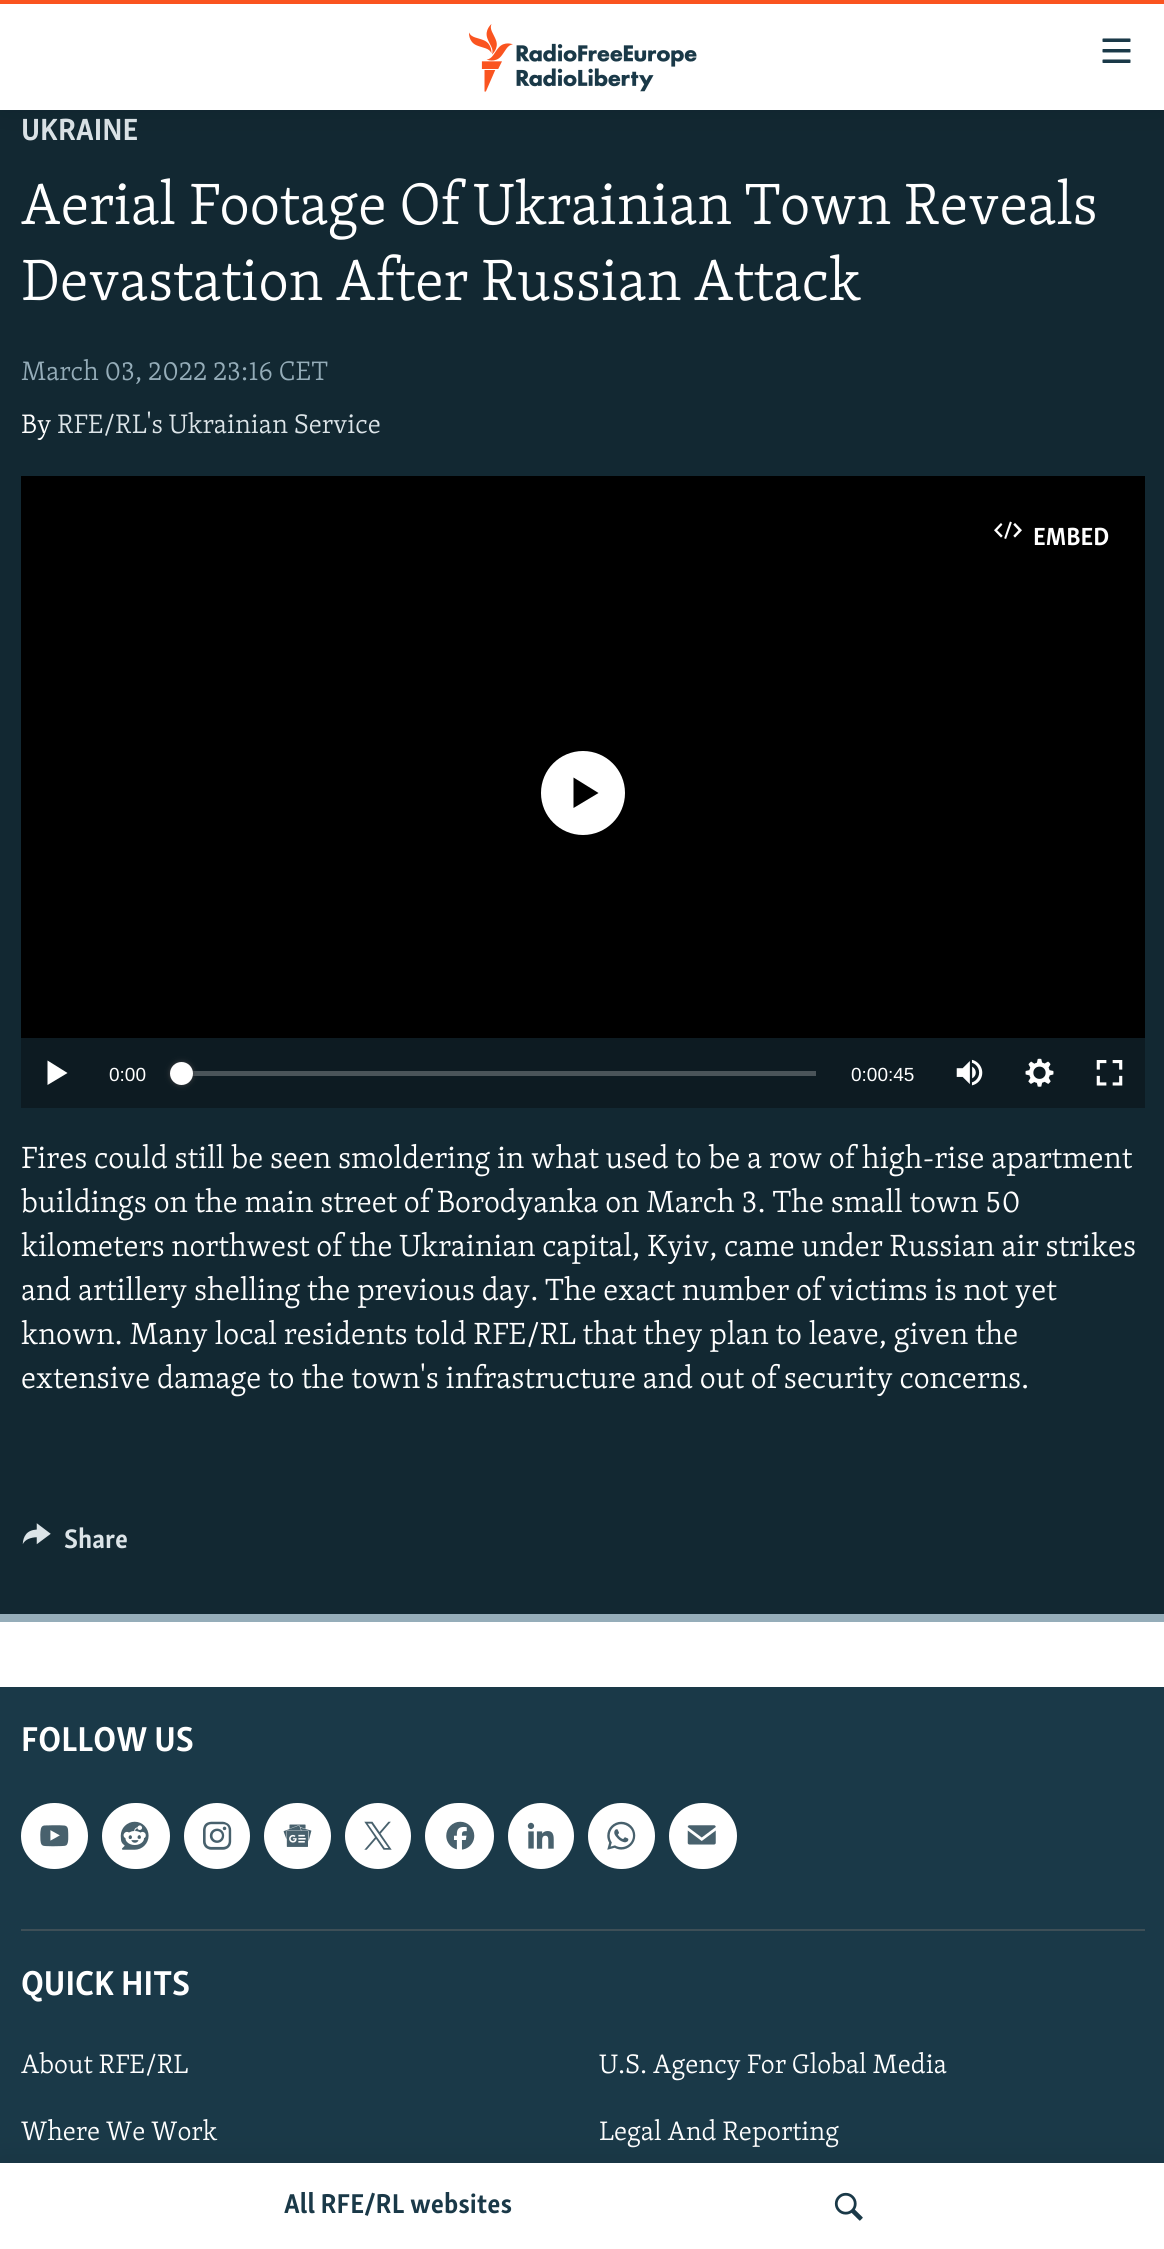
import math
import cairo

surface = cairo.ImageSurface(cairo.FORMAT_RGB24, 1164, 2249)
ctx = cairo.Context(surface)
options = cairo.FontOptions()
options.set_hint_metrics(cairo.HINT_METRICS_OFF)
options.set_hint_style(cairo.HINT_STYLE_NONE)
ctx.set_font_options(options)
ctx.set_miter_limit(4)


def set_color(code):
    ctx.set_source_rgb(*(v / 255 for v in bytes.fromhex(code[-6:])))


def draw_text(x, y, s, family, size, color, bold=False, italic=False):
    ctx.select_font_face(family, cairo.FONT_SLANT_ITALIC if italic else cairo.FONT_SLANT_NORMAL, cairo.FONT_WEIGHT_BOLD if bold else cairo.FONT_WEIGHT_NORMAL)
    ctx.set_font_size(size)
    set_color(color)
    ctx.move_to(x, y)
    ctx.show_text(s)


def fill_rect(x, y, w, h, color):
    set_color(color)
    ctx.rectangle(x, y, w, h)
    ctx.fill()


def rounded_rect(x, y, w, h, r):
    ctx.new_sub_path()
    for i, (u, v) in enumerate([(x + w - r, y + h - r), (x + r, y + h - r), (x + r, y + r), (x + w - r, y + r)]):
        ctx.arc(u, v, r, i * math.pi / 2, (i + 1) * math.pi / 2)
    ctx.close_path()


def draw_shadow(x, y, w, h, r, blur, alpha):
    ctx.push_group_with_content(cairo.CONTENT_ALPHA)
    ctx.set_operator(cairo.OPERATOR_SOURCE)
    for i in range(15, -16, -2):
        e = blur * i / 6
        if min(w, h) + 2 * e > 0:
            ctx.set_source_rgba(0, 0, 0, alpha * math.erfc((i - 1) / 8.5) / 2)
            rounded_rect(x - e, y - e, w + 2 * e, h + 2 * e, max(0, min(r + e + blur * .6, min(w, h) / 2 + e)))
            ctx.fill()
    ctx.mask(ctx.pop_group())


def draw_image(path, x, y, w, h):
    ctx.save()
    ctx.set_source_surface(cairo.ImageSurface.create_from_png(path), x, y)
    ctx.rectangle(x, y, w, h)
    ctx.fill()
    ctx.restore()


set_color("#ffffff")
ctx.paint()
fill_rect(0, 110, 1164, 1504, "#122832")
fill_rect(0, 1614, 1164, 8, "#95adb9")
draw_text(21, 140, "UKRAINE", "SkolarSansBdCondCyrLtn", 31.5, "#dce4e8", bold=True)
draw_text(21, 224, "Aerial Footage Of Ukrainian Town Reveals", "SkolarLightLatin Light", 59.8, "#ffffff")
draw_text(21, 300, "Devastation After Russian Attack", "SkolarLightLatin Light", 59.8, "#ffffff")
draw_text(21, 380, "March 03, 2022 23:16 CET", "SkolarLightLatin Light", 27.5, "#95adb9")
draw_text(21, 433, "By", "SkolarLightLatin Light", 27.5, "#ffffff")
draw_text(57, 433, "RFE/RL's Ukrainian Service", "SkolarLightLatin Light", 27.5, "#dce4e8")
fill_rect(21, 476, 1124, 562, "#000000")
draw_image("assets/img1.png", 994, 521, 28, 18)
draw_text(1033, 545, "EMBED", "SkolarSansBdCondCyrLtn", 25.5, "#ffffff", bold=True)
ctx.new_path()
ctx.arc(583, 793, 42, 0, 2 * math.pi)
ctx.fill()
set_color("#000000")
ctx.new_path()
ctx.move_to(573.5, 808)
ctx.line_to(598.5, 793)
ctx.line_to(573.5, 777.5)
ctx.close_path()
ctx.fill()
fill_rect(21, 1038, 1124, 70, "#0d1b22")
set_color("#ffffff")
ctx.new_path()
ctx.move_to(47.5, 1085)
ctx.line_to(67.5, 1073)
ctx.line_to(47.5, 1060.5)
ctx.close_path()
ctx.fill()
draw_text(109, 1081, "0:00", "Liberation Sans", 19, "#ffffff")
fill_rect(192, 1071, 624, 5, "#4a5459")
set_color("#414144")
draw_shadow(170, 1062, 23, 23, 11.5, 2.5, 1)
set_color("#ffffff")
ctx.arc(181.5, 1073.5, 11.5, 0, 2 * math.pi)
ctx.fill()
draw_text(851, 1081, "0:00:45", "Liberation Sans", 19, "#ffffff")
draw_image("assets/img2.png", 956, 1059, 27, 27)
draw_image("assets/img3.png", 1025, 1058, 29, 29)
draw_image("assets/img4.png", 1096, 1060, 27, 26)
draw_text(21, 1168, "Fires could still be seen smoldering in what used to be a row of high-rise apartment", "SkolarLightLatin Light", 31.5, "#ffffff")
draw_text(21, 1212, "buildings on the main street of Borodyanka on March 3. The small town 50", "SkolarLightLatin Light", 31.5, "#ffffff")
draw_text(21, 1256, "kilometers northwest of the Ukrainian capital, Kyiv, came under Russian air strikes", "SkolarLightLatin Light", 31.5, "#ffffff")
draw_text(21, 1300, "and artillery shelling the previous day. The exact number of victims is not yet", "SkolarLightLatin Light", 31.5, "#ffffff")
draw_text(21, 1344, "known. Many local residents told RFE/RL that they plan to leave, given the", "SkolarLightLatin Light", 31.5, "#ffffff")
draw_text(21, 1388, "extensive damage to the town's infrastructure and out of security concerns.", "SkolarLightLatin Light", 31.5, "#ffffff")
draw_image("assets/img5.png", 22, 1523, 29, 22)
draw_text(64, 1548, "Share", "SkolarSansBdCondCyrLtn", 27.5, "#dce4e8", bold=True)
fill_rect(0, 1687, 1164, 476, "#1a3948")
draw_text(21, 1751, "FOLLOW US", "SkolarSansBdCondCyrLtn", 35.5, "#ffffff", bold=True)
rounded_rect(21, 1803, 67, 66, 33)
ctx.fill()
draw_image("assets/img6.png", 40, 1825, 29, 22)
rounded_rect(102, 1803, 68, 66, 33)
ctx.fill()
draw_image("assets/img7.png", 120, 1821, 29, 29)
ctx.arc(217, 1836, 33, 0, 2 * math.pi)
ctx.fill()
draw_image("assets/img8.png", 203, 1821, 29, 29)
rounded_rect(264, 1803, 67, 66, 33)
ctx.fill()
draw_image("assets/img9.png", 283, 1824, 29, 23)
ctx.arc(378, 1836, 33, 0, 2 * math.pi)
ctx.fill()
draw_image("assets/img10.png", 364, 1821, 28, 29)
rounded_rect(425, 1803, 69, 66, 33)
ctx.fill()
draw_image("assets/img11.png", 446, 1821, 29, 29)
ctx.arc(541, 1836, 33, 0, 2 * math.pi)
ctx.fill()
draw_image("assets/img12.png", 527, 1822, 27, 27)
rounded_rect(588, 1803, 67, 66, 33)
ctx.fill()
draw_image("assets/img13.png", 607, 1821, 29, 29)
rounded_rect(669, 1803, 68, 66, 33)
ctx.fill()
draw_image("assets/img14.png", 687, 1825, 29, 20)
fill_rect(21, 1929, 1124, 2, "#3e4f57")
draw_text(21, 1995, "QUICK HITS", "SkolarSansBdCondCyrLtn", 35.5, "#ffffff", bold=True)
draw_text(21, 2073, "About RFE/RL", "SkolarLightLatin Light", 27.5, "#ffffff")
draw_text(599, 2073, "U.S. Agency For Global Media", "SkolarLightLatin Light", 27.5, "#ffffff")
draw_text(21, 2140, "Where We Work", "SkolarLightLatin Light", 27.5, "#ffffff")
draw_text(599, 2140, "Legal And Reporting", "SkolarLightLatin Light", 27.5, "#ffffff")
set_color("#000000")
draw_shadow(0, 0, 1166, 110, 0, 17.5, 0.1)
fill_rect(0, 4, 1164, 106, "#ffffff")
fill_rect(0, 0, 1164, 4, "#fa5420")
draw_image("assets/img15.png", 469, 24, 228, 68)
draw_image("assets/img16.png", 1102, 38, 29, 25)
set_color("#000000")
draw_shadow(0, 2163, 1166, 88, 0, 17.5, 0.1)
fill_rect(0, 2163, 1164, 86, "#ffffff")
draw_text(284, 2213, "All RFE/RL websites", "SkolarSansBdCondCyrLtn", 28, "#1a3948", bold=True)
draw_image("assets/img17.png", 834, 2192, 29, 29)
surface.write_to_png("output.png")
